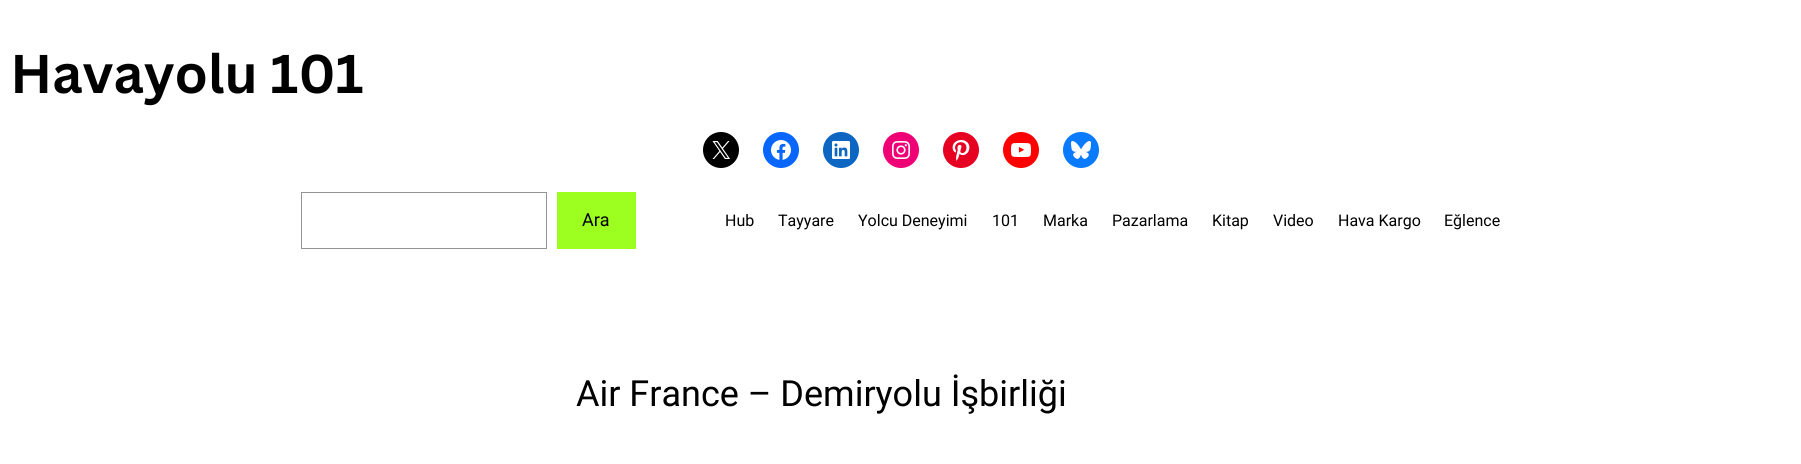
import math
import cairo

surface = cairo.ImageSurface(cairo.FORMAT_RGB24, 1801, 464)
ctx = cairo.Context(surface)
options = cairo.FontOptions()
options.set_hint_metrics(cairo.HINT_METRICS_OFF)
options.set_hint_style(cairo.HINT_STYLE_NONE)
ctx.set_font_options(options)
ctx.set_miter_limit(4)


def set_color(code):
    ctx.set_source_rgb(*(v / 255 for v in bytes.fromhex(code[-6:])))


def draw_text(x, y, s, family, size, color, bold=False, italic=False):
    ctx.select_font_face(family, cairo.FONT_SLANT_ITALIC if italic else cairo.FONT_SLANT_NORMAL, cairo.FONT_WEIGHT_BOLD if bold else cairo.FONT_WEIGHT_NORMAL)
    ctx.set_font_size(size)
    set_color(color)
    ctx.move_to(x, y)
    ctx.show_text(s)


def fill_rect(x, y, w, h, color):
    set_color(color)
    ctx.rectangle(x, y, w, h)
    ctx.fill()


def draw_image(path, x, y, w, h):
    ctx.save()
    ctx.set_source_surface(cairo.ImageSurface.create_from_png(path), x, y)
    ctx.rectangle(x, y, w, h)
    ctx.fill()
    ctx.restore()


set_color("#ffffff")
ctx.paint()
draw_image("assets/img1.png", 15, 52, 348, 54)
set_color("#000000")
ctx.arc(721, 150, 18, 0, 2 * math.pi)
ctx.fill()
draw_image("assets/img2.png", 712, 141, 18, 18)
set_color("#0866ff")
ctx.arc(781, 150, 18, 0, 2 * math.pi)
ctx.fill()
draw_image("assets/img3.png", 771, 140, 20, 20)
set_color("#0d66c2")
ctx.arc(841, 150, 18, 0, 2 * math.pi)
ctx.fill()
draw_image("assets/img4.png", 832, 141, 18, 18)
set_color("#f00075")
ctx.arc(901, 150, 18, 0, 2 * math.pi)
ctx.fill()
draw_image("assets/img5.png", 892, 141, 18, 18)
set_color("#e60122")
ctx.arc(961, 150, 18, 0, 2 * math.pi)
ctx.fill()
draw_image("assets/img6.png", 952, 140, 18, 21)
set_color("#ff0000")
ctx.arc(1021, 150, 18, 0, 2 * math.pi)
ctx.fill()
draw_image("assets/img7.png", 1011, 143, 20, 14)
set_color("#0a7aff")
ctx.arc(1081, 150, 18, 0, 2 * math.pi)
ctx.fill()
draw_image("assets/img8.png", 1071, 141, 20, 18)
ctx.rectangle(301.5, 192.5, 245, 56)
set_color("#949494")
ctx.set_line_width(1)
ctx.stroke()
fill_rect(557, 192, 79, 57, "#9dff20")
draw_text(582, 226, "Ara", "Roboto", 18, "#000000")
draw_text(725, 226, "Hub", "Roboto", 16, "#000000")
draw_text(778, 226, "Tayyare", "Roboto", 16, "#000000")
draw_text(858, 226, "Yolcu Deneyimi", "Roboto", 16, "#000000")
draw_text(992, 226, "101", "Roboto", 16, "#000000")
draw_text(1043, 226, "Marka", "Roboto", 16, "#000000")
draw_text(1112, 226, "Pazarlama", "Roboto", 16, "#000000")
draw_text(1212, 226, "Kitap", "Roboto", 16, "#000000")
draw_text(1273, 226, "Video", "Roboto", 16, "#000000")
draw_text(1338, 226, "Hava Kargo", "Roboto", 16, "#000000")
draw_text(1444, 226, "Eğlence", "Roboto", 16, "#000000")
draw_text(576, 406, "Air France – Demiryolu İşbirliği", "Roboto", 36, "#000000")
surface.write_to_png("output.png")
